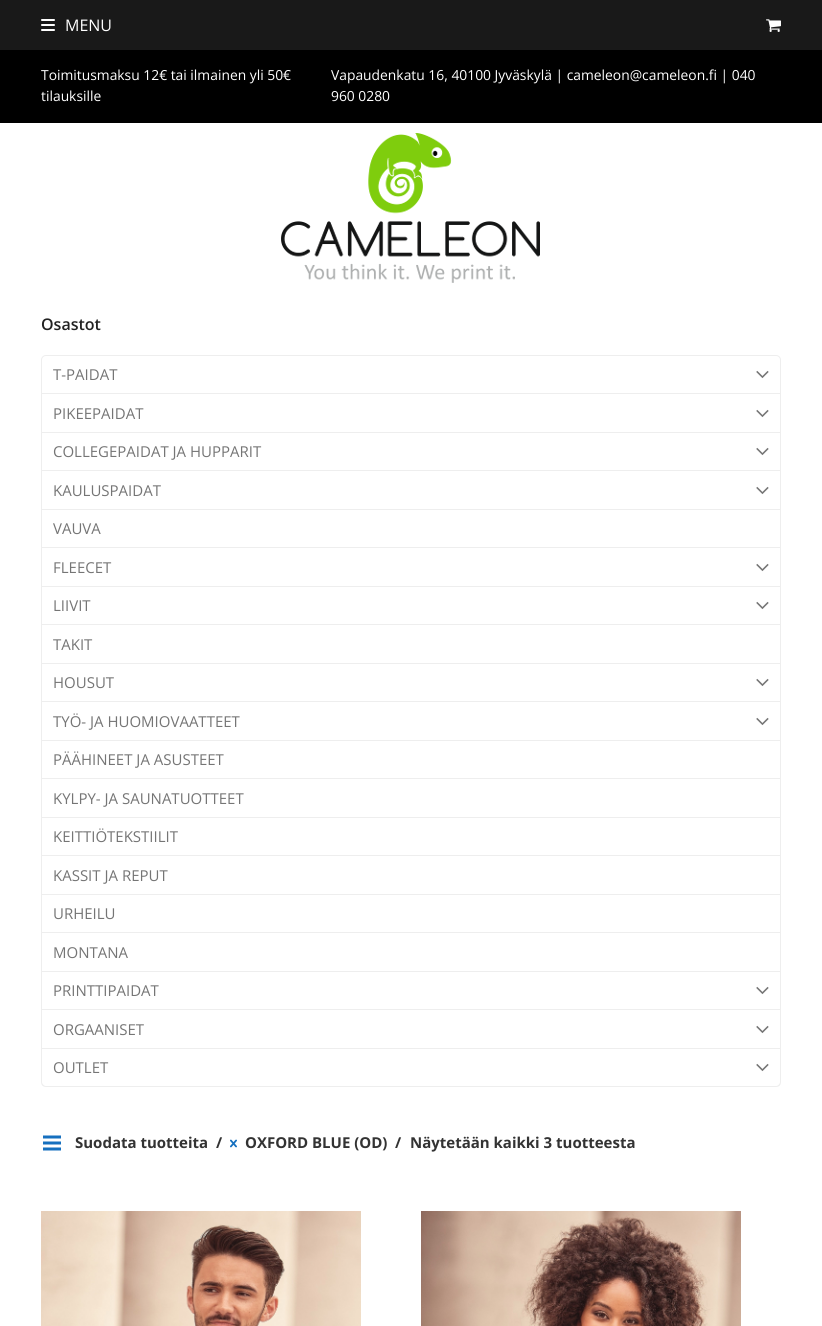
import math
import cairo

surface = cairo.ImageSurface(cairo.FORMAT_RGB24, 822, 1326)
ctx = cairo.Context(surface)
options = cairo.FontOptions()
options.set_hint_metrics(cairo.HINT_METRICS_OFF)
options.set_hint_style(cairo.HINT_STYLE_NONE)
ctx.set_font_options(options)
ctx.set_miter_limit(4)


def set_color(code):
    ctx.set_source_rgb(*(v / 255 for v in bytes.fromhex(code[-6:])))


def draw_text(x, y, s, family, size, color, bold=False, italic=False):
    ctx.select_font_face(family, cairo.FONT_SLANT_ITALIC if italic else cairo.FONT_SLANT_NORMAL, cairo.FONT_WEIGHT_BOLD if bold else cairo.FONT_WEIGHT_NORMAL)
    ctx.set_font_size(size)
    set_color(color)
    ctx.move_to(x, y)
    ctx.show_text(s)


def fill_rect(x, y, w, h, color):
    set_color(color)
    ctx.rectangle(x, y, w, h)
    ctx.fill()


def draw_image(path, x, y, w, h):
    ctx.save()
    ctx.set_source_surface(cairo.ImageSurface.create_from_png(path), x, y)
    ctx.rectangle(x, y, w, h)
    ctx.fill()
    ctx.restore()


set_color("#ffffff")
ctx.paint()
fill_rect(0, 0, 822, 50, "#191919")
draw_image("assets/img1.png", 41, 19, 14, 12)
draw_text(65, 31, "MENU", "Open Sans", 16, "#ffffff")
draw_image("assets/img2.png", 766, 19, 15, 13)
fill_rect(0, 50, 822, 73, "#000000")
draw_text(41, 80, "Toimitusmaksu 12€ tai ilmainen yli 50€", "Open Sans", 13.85, "#ffffff")
draw_text(41, 101, "tilauksille", "Open Sans", 13.85, "#ffffff")
draw_text(331, 80, "Vapaudenkatu 16, 40100 Jyväskylä | cameleon@cameleon.fi | 040", "Open Sans", 13.85, "#ffffff")
draw_text(331, 101, "960 0280", "Open Sans", 13.85, "#ffffff")
draw_image("assets/img3.png", 281, 133, 259, 150)
draw_text(41, 330, "Osastot", "Open Sans SemiBold", 16, "#222222")
ctx.new_path()
ctx.move_to(46, 355.5)
ctx.line_to(776, 355.5)
ctx.curve_to(778.5, 355.5, 780.5, 357.5, 780.5, 360)
ctx.line_to(780.5, 393.5)
ctx.line_to(41.5, 393.5)
ctx.line_to(41.5, 360)
ctx.curve_to(41.5, 357.5, 43.5, 355.5, 46, 355.5)
ctx.close_path()
set_color("#eeeeee")
ctx.set_line_width(1)
ctx.stroke()
draw_text(53, 380, "T-PAIDAT", "Open Sans", 15, "#757575")
draw_image("assets/img4.png", 756, 370, 13, 9)
fill_rect(780, 394, 1, 655, "#eeeeee")
fill_rect(41, 432, 740, 1, "#eeeeee")
fill_rect(41, 394, 1, 39, "#eeeeee")
draw_text(53, 419, "PIKEEPAIDAT", "Open Sans", 15, "#757575")
draw_image("assets/img4.png", 756, 409, 13, 9)
fill_rect(41, 470, 740, 1, "#eeeeee")
fill_rect(41, 433, 1, 38, "#eeeeee")
draw_text(53, 457, "COLLEGEPAIDAT JA HUPPARIT", "Open Sans", 15, "#757575")
draw_image("assets/img4.png", 756, 447, 13, 9)
fill_rect(41, 509, 740, 1, "#eeeeee")
fill_rect(41, 471, 1, 39, "#eeeeee")
draw_text(53, 496, "KAULUSPAIDAT", "Open Sans", 15, "#757575")
draw_image("assets/img4.png", 756, 486, 13, 9)
fill_rect(41, 547, 740, 1, "#eeeeee")
fill_rect(41, 510, 1, 38, "#eeeeee")
draw_text(53, 534, "VAUVA", "Open Sans", 15, "#757575")
fill_rect(41, 586, 740, 1, "#eeeeee")
fill_rect(41, 548, 1, 39, "#eeeeee")
draw_text(53, 573, "FLEECET", "Open Sans", 15, "#757575")
draw_image("assets/img4.png", 756, 563, 13, 9)
fill_rect(41, 624, 740, 1, "#eeeeee")
fill_rect(41, 587, 1, 38, "#eeeeee")
draw_text(53, 611, "LIIVIT", "Open Sans", 15, "#757575")
draw_image("assets/img4.png", 756, 601, 13, 9)
fill_rect(41, 663, 740, 1, "#eeeeee")
fill_rect(41, 625, 1, 39, "#eeeeee")
draw_text(53, 650, "TAKIT", "Open Sans", 15, "#757575")
fill_rect(41, 701, 740, 1, "#eeeeee")
fill_rect(41, 664, 1, 38, "#eeeeee")
draw_text(53, 688, "HOUSUT", "Open Sans", 15, "#757575")
draw_image("assets/img4.png", 756, 678, 13, 9)
fill_rect(41, 740, 740, 1, "#eeeeee")
fill_rect(41, 702, 1, 39, "#eeeeee")
draw_text(53, 727, "TYÖ- JA HUOMIOVAATTEET", "Open Sans", 15, "#757575")
draw_image("assets/img4.png", 756, 717, 13, 9)
fill_rect(41, 778, 740, 1, "#eeeeee")
fill_rect(41, 741, 1, 38, "#eeeeee")
draw_text(53, 765, "PÄÄHINEET JA ASUSTEET", "Open Sans", 15, "#757575")
fill_rect(41, 817, 740, 1, "#eeeeee")
fill_rect(41, 779, 1, 39, "#eeeeee")
draw_text(53, 804, "KYLPY- JA SAUNATUOTTEET", "Open Sans", 15, "#757575")
fill_rect(41, 855, 740, 1, "#eeeeee")
fill_rect(41, 818, 1, 38, "#eeeeee")
draw_text(53, 842, "KEITTIÖTEKSTIILIT", "Open Sans", 15, "#757575")
fill_rect(41, 894, 740, 1, "#eeeeee")
fill_rect(41, 856, 1, 39, "#eeeeee")
draw_text(53, 881, "KASSIT JA REPUT", "Open Sans", 15, "#757575")
fill_rect(41, 932, 740, 1, "#eeeeee")
fill_rect(41, 895, 1, 38, "#eeeeee")
draw_text(53, 919, "URHEILU", "Open Sans", 15, "#757575")
fill_rect(41, 971, 740, 1, "#eeeeee")
fill_rect(41, 933, 1, 39, "#eeeeee")
draw_text(53, 958, "MONTANA", "Open Sans", 15, "#757575")
fill_rect(41, 1009, 740, 1, "#eeeeee")
fill_rect(41, 972, 1, 38, "#eeeeee")
draw_text(53, 996, "PRINTTIPAIDAT", "Open Sans", 15, "#757575")
draw_image("assets/img4.png", 756, 986, 13, 9)
fill_rect(41, 1048, 740, 1, "#eeeeee")
fill_rect(41, 1010, 1, 39, "#eeeeee")
draw_text(53, 1035, "ORGAANISET", "Open Sans", 15, "#757575")
draw_image("assets/img4.png", 756, 1025, 13, 9)
set_color("#eeeeee")
ctx.set_fill_rule(cairo.FILL_RULE_EVEN_ODD)
ctx.new_path()
ctx.move_to(41, 1049)
ctx.line_to(781, 1049)
ctx.line_to(781, 1082)
ctx.curve_to(781, 1085, 779, 1087, 776, 1087)
ctx.line_to(46, 1087)
ctx.curve_to(43, 1087, 41, 1085, 41, 1082)
ctx.close_path()
ctx.move_to(42, 1049)
ctx.line_to(780, 1049)
ctx.line_to(780, 1082)
ctx.curve_to(780, 1084, 778, 1086, 776, 1086)
ctx.line_to(46, 1086)
ctx.curve_to(44, 1086, 42, 1084, 42, 1082)
ctx.close_path()
ctx.fill()
draw_text(53, 1073, "OUTLET", "Open Sans", 15, "#757575")
draw_image("assets/img4.png", 756, 1063, 13, 9)
draw_image("assets/img5.png", 43, 1135, 18, 16)
draw_text(75, 1148, "Suodata tuotteita", "Open Sans", 15, "#333333", bold=True)
draw_text(216, 1148, "/", "Open Sans", 15, "#333333", bold=True)
draw_image("assets/img6.png", 230, 1139, 7, 9)
draw_text(245, 1148, "OXFORD BLUE (OD)", "Open Sans", 15, "#333333", bold=True)
draw_text(395, 1148, "/", "Open Sans", 15, "#333333", bold=True)
draw_text(410, 1148, "Näytetään kaikki 3 tuotteesta", "Open Sans", 15, "#333333", bold=True)
draw_image("assets/img7.png", 41, 1211, 320, 115)
draw_image("assets/img8.png", 421, 1211, 320, 115)
surface.write_to_png("output.png")
